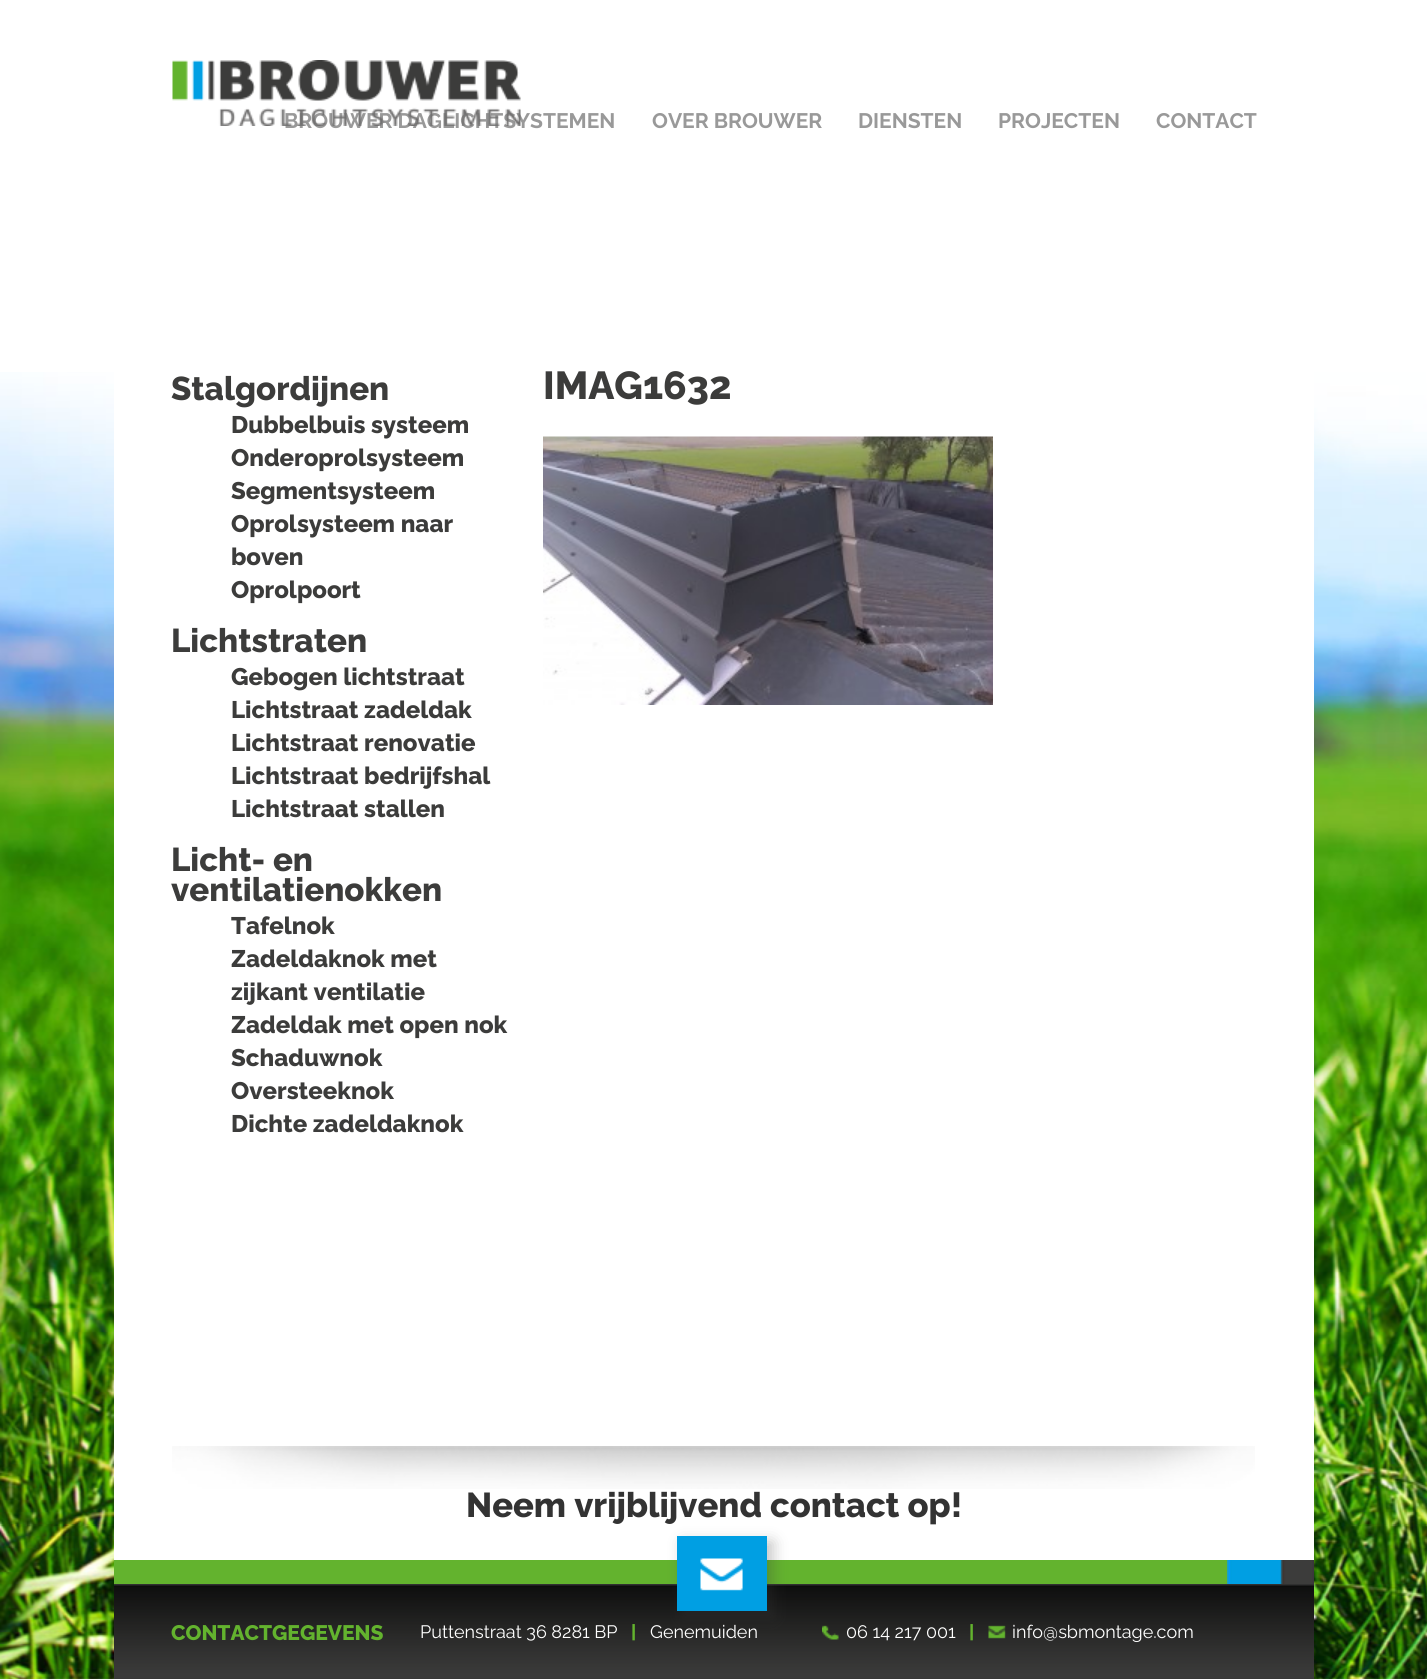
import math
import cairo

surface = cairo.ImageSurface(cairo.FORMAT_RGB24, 1427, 1679)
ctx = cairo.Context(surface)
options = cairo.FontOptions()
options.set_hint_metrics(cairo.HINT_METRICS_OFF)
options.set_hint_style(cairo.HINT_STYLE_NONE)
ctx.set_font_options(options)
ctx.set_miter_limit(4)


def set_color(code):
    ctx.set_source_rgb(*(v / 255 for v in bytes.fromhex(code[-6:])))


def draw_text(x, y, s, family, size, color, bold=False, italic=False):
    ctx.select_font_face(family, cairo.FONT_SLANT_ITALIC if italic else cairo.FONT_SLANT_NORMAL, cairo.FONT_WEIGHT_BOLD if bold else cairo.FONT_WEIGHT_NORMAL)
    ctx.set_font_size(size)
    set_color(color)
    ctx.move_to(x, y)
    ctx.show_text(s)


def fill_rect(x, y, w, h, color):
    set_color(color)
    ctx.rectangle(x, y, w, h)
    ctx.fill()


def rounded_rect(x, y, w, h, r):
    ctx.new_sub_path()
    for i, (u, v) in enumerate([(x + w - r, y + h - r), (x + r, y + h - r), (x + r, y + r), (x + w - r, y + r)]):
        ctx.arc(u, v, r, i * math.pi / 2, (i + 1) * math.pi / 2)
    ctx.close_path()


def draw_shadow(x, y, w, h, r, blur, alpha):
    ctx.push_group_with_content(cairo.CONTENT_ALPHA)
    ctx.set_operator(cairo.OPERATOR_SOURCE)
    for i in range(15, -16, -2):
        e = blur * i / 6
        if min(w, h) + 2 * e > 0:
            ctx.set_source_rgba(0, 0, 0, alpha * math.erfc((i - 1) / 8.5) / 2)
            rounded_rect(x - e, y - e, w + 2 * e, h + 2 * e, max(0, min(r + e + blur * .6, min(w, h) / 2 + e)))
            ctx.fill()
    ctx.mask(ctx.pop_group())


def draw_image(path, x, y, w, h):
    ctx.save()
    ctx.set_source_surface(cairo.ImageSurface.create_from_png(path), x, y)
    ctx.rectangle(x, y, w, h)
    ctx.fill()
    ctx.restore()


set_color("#ffffff")
ctx.paint()
draw_image("assets/img1.png", 0, 372, 1427, 1307)
fill_rect(114, 372, 1200, 1214, "#ffffff")
draw_text(284, 128, "BROUWER DAGLICHTSYSTEMEN", "Raleway", 21, "#999999", bold=True)
draw_image("assets/img2.png", 172, 60, 349, 66)
draw_text(652, 128, "OVER BROUWER", "Raleway", 21, "#999999", bold=True)
draw_text(858, 128, "DIENSTEN", "Raleway", 21, "#999999", bold=True)
draw_text(998, 128, "PROJECTEN", "Raleway", 21, "#999999", bold=True)
draw_text(1156, 128, "CONTACT", "Raleway", 21, "#999999", bold=True)
draw_text(171, 400, "Stalgordijnen", "Raleway ExtraBold", 33, "#3c3c3b")
draw_text(231, 433, "Dubbelbuis systeem", "Raleway ExtraBold", 24, "#3c3c3b")
draw_text(231, 466, "Onderoprolsysteem", "Raleway ExtraBold", 24, "#3c3c3b")
draw_text(231, 499, "Segmentsysteem", "Raleway ExtraBold", 24, "#3c3c3b")
draw_text(231, 532, "Oprolsysteem naar", "Raleway ExtraBold", 24, "#3c3c3b")
draw_text(231, 565, "boven", "Raleway ExtraBold", 24, "#3c3c3b")
draw_text(231, 598, "Oprolpoort", "Raleway ExtraBold", 24, "#3c3c3b")
draw_text(171, 652, "Lichtstraten", "Raleway ExtraBold", 33, "#3c3c3b")
draw_text(231, 685, "Gebogen lichtstraat", "Raleway ExtraBold", 24, "#3c3c3b")
draw_text(231, 718, "Lichtstraat zadeldak", "Raleway ExtraBold", 24, "#3c3c3b")
draw_text(231, 751, "Lichtstraat renovatie", "Raleway ExtraBold", 24, "#3c3c3b")
draw_text(231, 784, "Lichtstraat bedrijfshal", "Raleway ExtraBold", 24, "#3c3c3b")
draw_text(231, 817, "Lichtstraat stallen", "Raleway ExtraBold", 24, "#3c3c3b")
draw_text(171, 871, "Licht- en", "Raleway ExtraBold", 33, "#3c3c3b")
draw_text(171, 901, "ventilatienokken", "Raleway ExtraBold", 33, "#3c3c3b")
draw_text(231, 934, "Tafelnok", "Raleway ExtraBold", 24, "#3c3c3b")
draw_text(231, 967, "Zadeldaknok met", "Raleway ExtraBold", 24, "#3c3c3b")
draw_text(231, 1000, "zijkant ventilatie", "Raleway ExtraBold", 24, "#3c3c3b")
draw_text(231, 1033, "Zadeldak met open nok", "Raleway ExtraBold", 24, "#3c3c3b")
draw_text(231, 1066, "Schaduwnok", "Raleway ExtraBold", 24, "#3c3c3b")
draw_text(231, 1099, "Oversteeknok", "Raleway ExtraBold", 24, "#3c3c3b")
draw_text(231, 1132, "Dichte zadeldaknok", "Raleway ExtraBold", 24, "#3c3c3b")
draw_text(543, 399, "IMAG1632", "Raleway ExtraBold", 39, "#3c3c3b")
draw_image("assets/img3.png", 543, 436, 450, 269)
draw_image("assets/img4.png", 172, 1446, 1083, 43)
draw_text(466, 1517, "Neem vrijblijvend contact op!", "Raleway ExtraBold", 34.5, "#333333")
fill_rect(114, 1560, 1113, 24, "#63b32e")
draw_image("assets/img5.png", 1227, 1560, 87, 24)
draw_image("assets/img7.png", 114, 1584, 1200, 95)
set_color("#3c3c3b")
draw_shadow(683, 1542, 90, 75, 0, 7.5, 0.3)
fill_rect(677, 1536, 90, 75, "#009fe3")
draw_image("assets/img6.png", 700, 1558, 43, 33)
draw_text(171, 1640, "CONTACTGEGEVENS", "Raleway ExtraBold", 21, "#63b32e")
draw_text(420, 1638, "Puttenstraat 36 8281 BP", "Raleway", 18, "#ffffff")
draw_text(631, 1638, "|", "Raleway ExtraBold", 18, "#63b32e")
draw_text(650, 1638, "Genemuiden", "Raleway", 18, "#ffffff")
draw_image("assets/img8.png", 822, 1625, 17, 15)
draw_text(846, 1638, "06 14 217 001", "Raleway", 18, "#ffffff")
draw_text(969, 1638, "|", "Raleway ExtraBold", 18, "#63b32e")
draw_image("assets/img9.png", 988, 1625, 18, 14)
draw_text(1012, 1638, "info@sbmontage.com", "Raleway", 18, "#ffffff")
surface.write_to_png("output.png")
